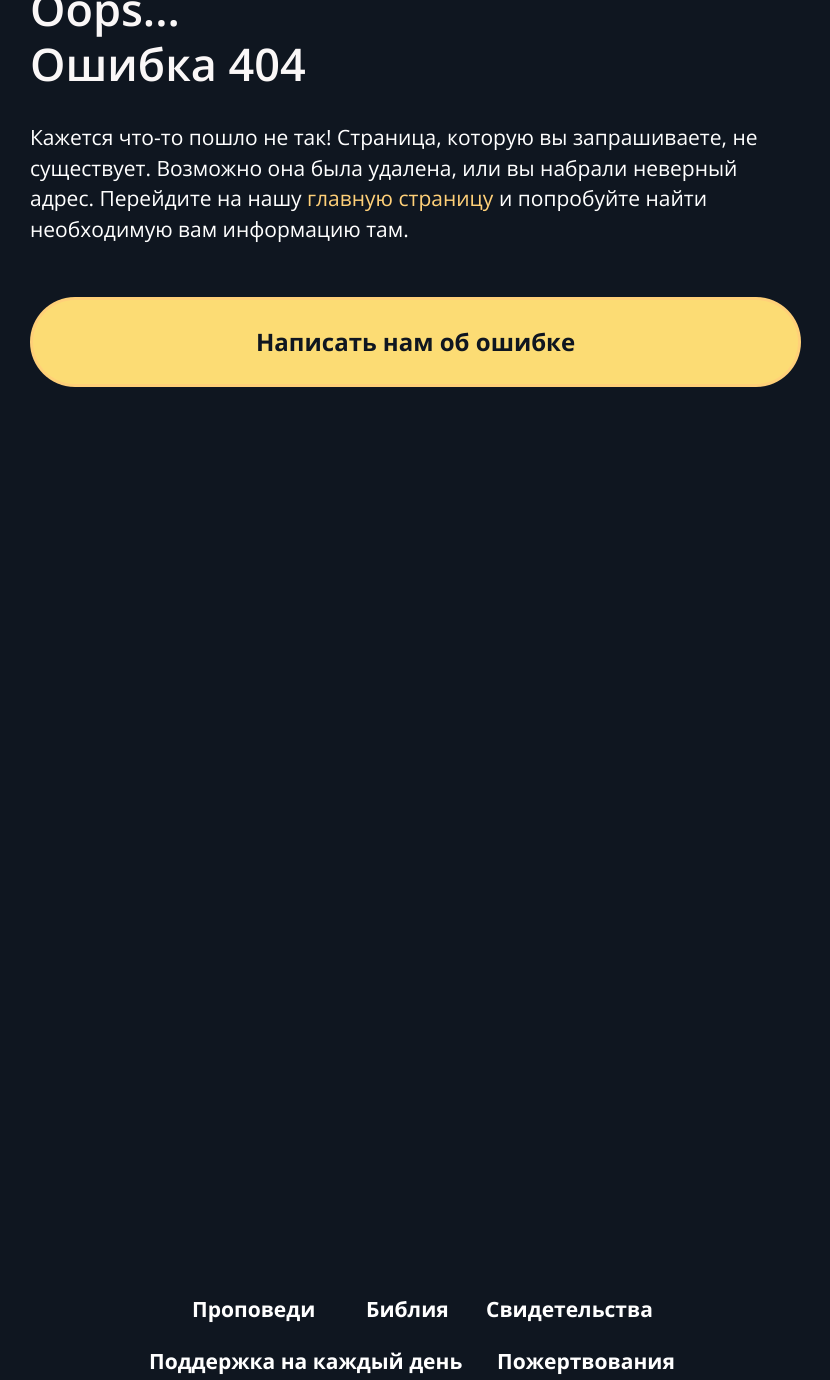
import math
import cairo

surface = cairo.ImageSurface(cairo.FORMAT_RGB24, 830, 1380)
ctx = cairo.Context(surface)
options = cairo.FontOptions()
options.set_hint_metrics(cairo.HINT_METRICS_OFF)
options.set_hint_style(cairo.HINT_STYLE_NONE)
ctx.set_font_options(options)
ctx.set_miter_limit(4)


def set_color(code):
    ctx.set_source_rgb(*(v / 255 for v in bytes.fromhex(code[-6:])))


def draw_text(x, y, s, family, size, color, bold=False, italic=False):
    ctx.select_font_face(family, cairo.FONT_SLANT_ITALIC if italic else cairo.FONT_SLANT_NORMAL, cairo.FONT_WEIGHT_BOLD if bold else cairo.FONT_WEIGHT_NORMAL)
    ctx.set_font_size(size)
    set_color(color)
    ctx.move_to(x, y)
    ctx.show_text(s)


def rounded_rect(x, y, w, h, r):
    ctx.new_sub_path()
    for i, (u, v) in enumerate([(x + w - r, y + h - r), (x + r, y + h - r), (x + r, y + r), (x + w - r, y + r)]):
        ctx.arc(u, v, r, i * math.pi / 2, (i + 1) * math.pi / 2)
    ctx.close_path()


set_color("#0f1620")
ctx.paint()
draw_text(30, 26, "Oops...", "Open Sans SemiBold", 45, "#faf7f7")
draw_text(30, 81, "Ошибка 404", "Open Sans SemiBold", 45, "#faf7f7")
draw_text(30, 145, "Кажется что-то пошло не так! Страница, которую вы запрашиваете, не", "Open Sans", 21, "#ffffff")
draw_text(30, 176, "существует. Возможно она была удалена, или вы набрали неверный", "Open Sans", 21, "#ffffff")
draw_text(30, 206, "адрес. Перейдите на нашу", "Open Sans", 21, "#ffffff")
draw_text(307, 206, "главную страницу", "Open Sans", 21, "#ffd078")
draw_text(499, 206, "и попробуйте найти", "Open Sans", 21, "#ffffff")
draw_text(30, 237, "необходимую вам информацию там.", "Open Sans", 21, "#ffffff")
set_color("#fcdc74")
rounded_rect(31.5, 298.5, 768, 87, 43.5)
ctx.fill_preserve()
set_color("#ffd078")
ctx.set_line_width(3)
ctx.stroke()
draw_text(256, 351, "Написать нам об ошибке", "Open Sans", 24, "#0f1620", bold=True)
draw_text(192, 1317, "Проповеди", "Open Sans", 21, "#ffffff", bold=True)
draw_text(366, 1317, "Библия", "Open Sans", 21, "#ffffff", bold=True)
draw_text(486, 1317, "Свидетельства", "Open Sans", 21, "#ffffff", bold=True)
draw_text(149, 1369, "Поддержка на каждый день", "Open Sans", 21, "#ffffff", bold=True)
draw_text(497, 1369, "Пожертвования", "Open Sans", 21, "#ffffff", bold=True)
surface.write_to_png("output.png")
